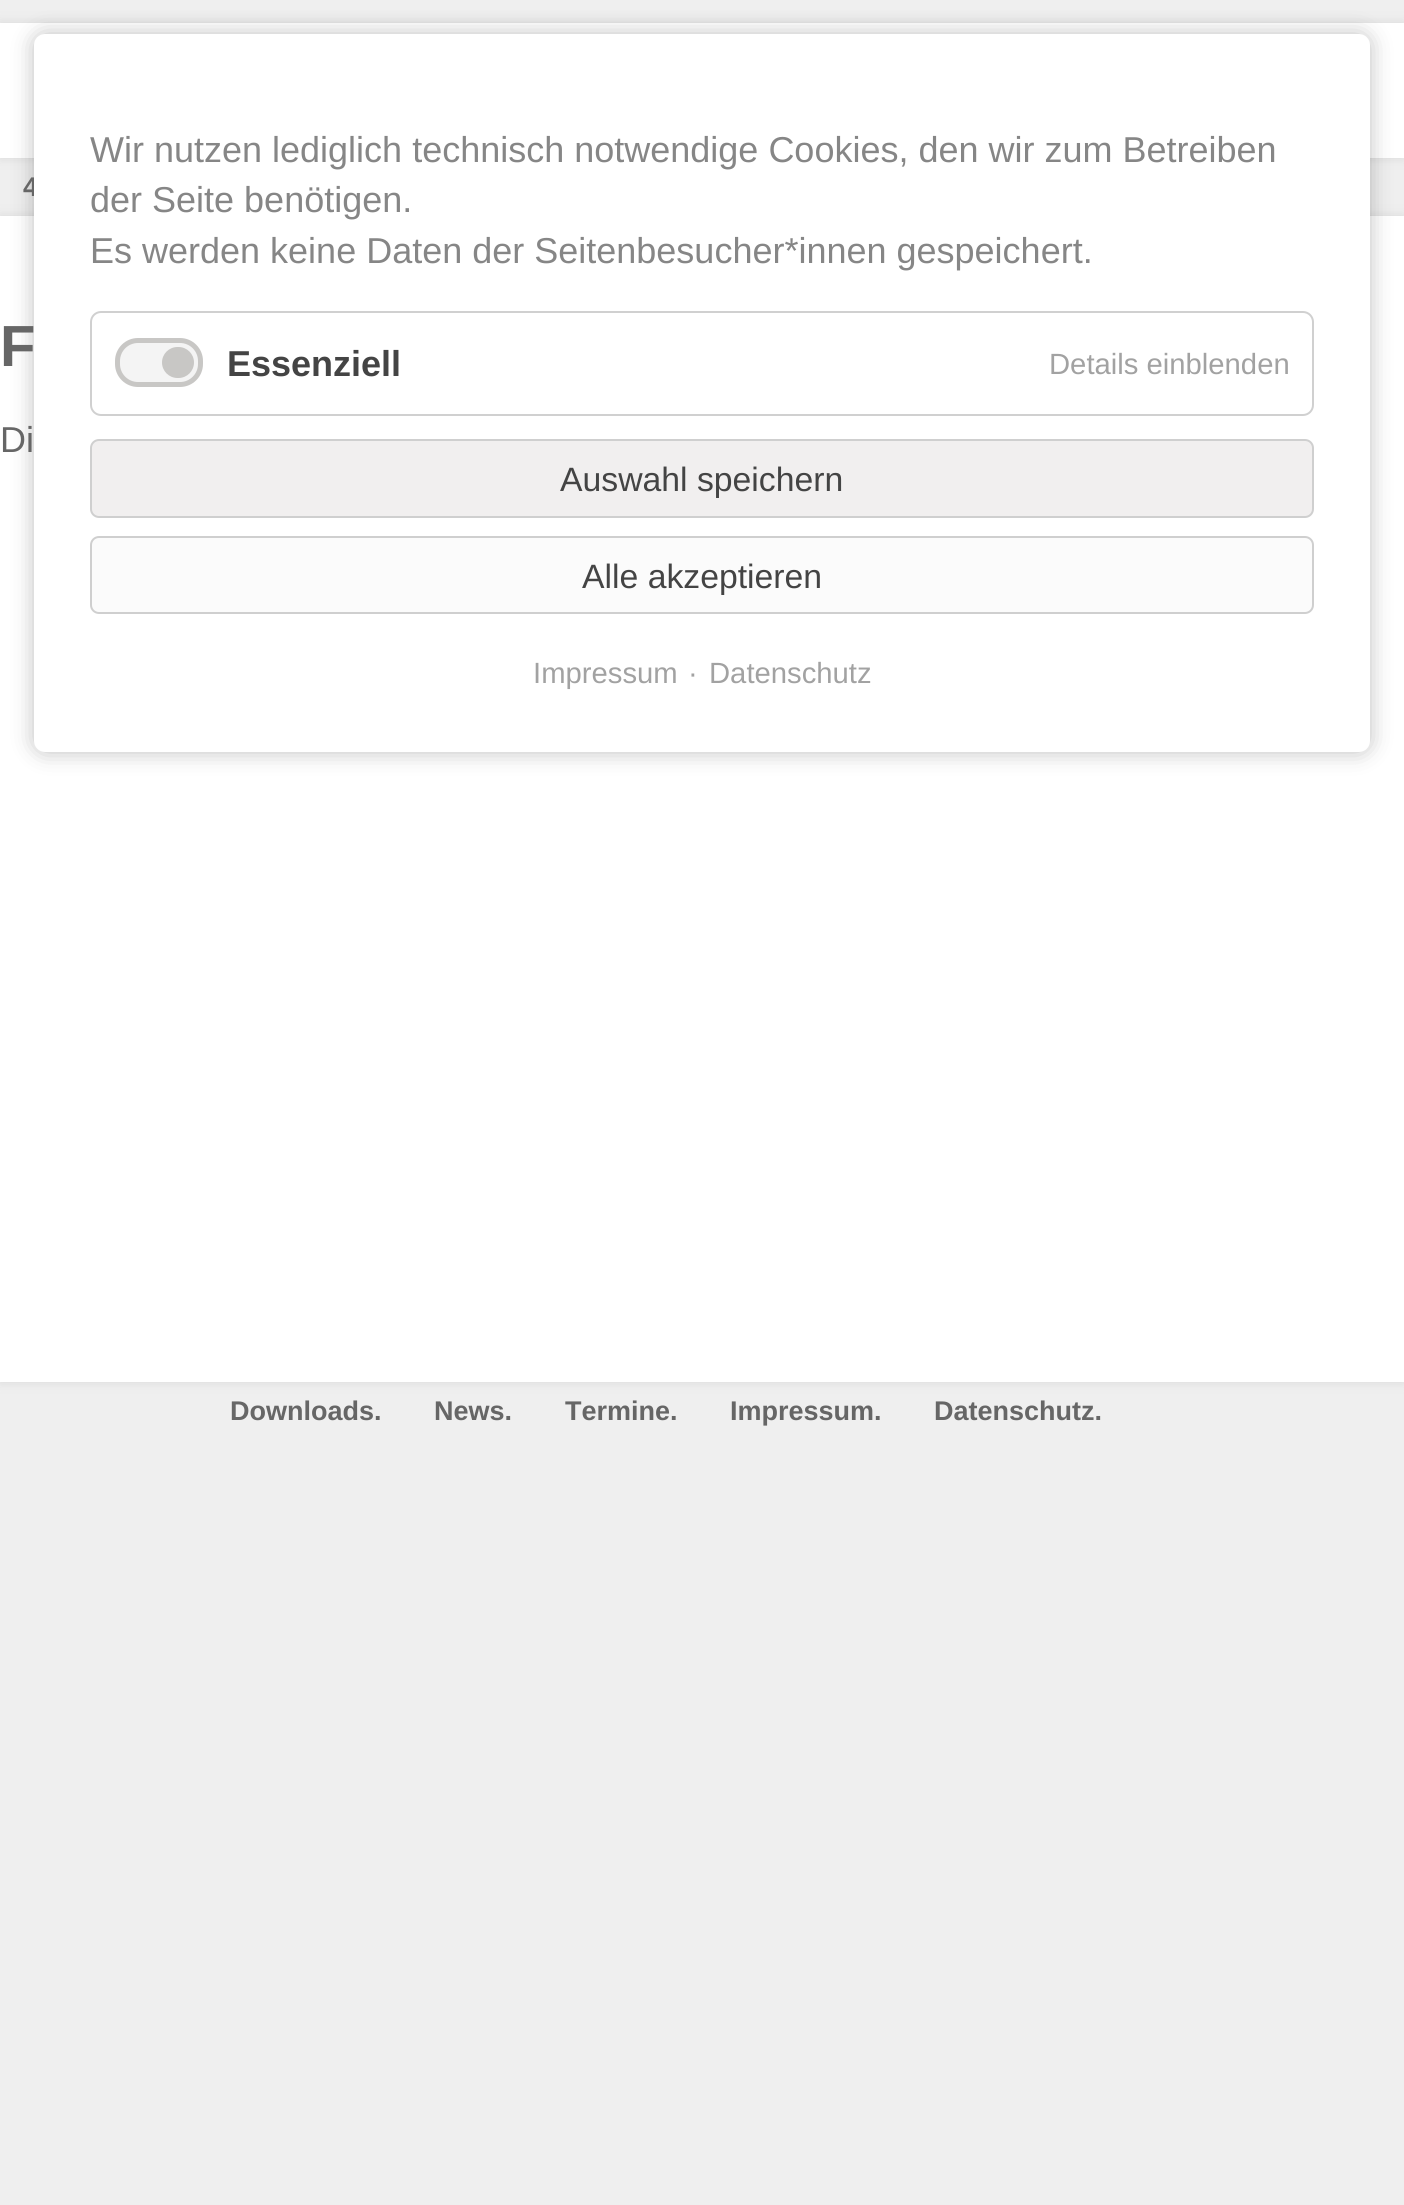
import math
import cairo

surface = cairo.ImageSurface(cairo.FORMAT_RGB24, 1404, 2205)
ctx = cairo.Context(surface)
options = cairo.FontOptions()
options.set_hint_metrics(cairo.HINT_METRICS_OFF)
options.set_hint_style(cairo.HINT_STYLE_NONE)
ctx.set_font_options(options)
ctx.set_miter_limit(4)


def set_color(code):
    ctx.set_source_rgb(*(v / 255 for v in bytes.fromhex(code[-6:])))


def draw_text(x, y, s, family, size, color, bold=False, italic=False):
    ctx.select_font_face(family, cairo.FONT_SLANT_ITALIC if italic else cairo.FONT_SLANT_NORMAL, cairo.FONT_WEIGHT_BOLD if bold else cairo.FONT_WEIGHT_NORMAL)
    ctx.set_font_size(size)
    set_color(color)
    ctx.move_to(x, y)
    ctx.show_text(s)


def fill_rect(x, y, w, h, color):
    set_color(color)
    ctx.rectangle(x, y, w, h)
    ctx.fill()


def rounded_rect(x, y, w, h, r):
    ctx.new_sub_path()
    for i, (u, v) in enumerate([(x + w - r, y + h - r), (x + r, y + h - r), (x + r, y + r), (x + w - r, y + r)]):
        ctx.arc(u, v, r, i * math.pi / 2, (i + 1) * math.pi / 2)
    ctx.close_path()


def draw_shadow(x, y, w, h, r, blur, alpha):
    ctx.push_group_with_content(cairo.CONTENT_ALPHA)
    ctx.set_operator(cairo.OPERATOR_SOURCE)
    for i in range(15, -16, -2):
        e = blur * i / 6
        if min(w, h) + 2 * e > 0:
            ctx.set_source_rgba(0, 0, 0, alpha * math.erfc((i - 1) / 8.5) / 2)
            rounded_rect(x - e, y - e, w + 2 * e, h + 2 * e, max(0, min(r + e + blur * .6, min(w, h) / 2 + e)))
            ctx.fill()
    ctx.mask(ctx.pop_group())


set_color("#efefef")
ctx.paint()
set_color("#d9d9d9")
draw_shadow(0, 23, 1404, 135, 0, 5.5, 1)
fill_rect(0, 23, 1404, 135, "#ffffff")
set_color("#d9d9d9")
draw_shadow(0, 216, 1404, 1166, 0, 5.5, 1)
fill_rect(0, 216, 1404, 1166, "#ffffff")
set_color("#000000")
draw_shadow(34, 34, 1336, 718, 11, 11, 0.25)
draw_text(23, 196, "4", "Liberation Sans", 27, "#666666", bold=True)
set_color("#ffffff")
rounded_rect(34, 34, 1336, 718, 11)
ctx.fill()
draw_text(90, 162, "Wir nutzen lediglich technisch notwendige Cookies, den wir zum Betreiben", "Liberation Sans", 36, "#868686")
draw_text(90, 212, "der Seite benötigen.", "Liberation Sans", 36, "#868686")
draw_text(90, 263, "Es werden keine Daten der Seitenbesucher*innen gespeichert.", "Liberation Sans", 36, "#868686")
rounded_rect(91, 312, 1222, 103, 10)
set_color("#d0d0d0")
ctx.stroke()
set_color("#f4f4f4")
rounded_rect(117.5, 340.5, 83, 44, 20.5)
ctx.fill_preserve()
set_color("#c8c7c5")
ctx.set_line_width(5)
ctx.stroke()
rounded_rect(162, 347, 32, 31, 15.5)
ctx.fill()
draw_text(227, 376, "Essenziell", "Liberation Sans", 36, "#444444", bold=True)
draw_text(1049, 374, "Details einblenden", "Liberation Sans", 29.25, "#a2a2a2")
set_color("#f1efef")
rounded_rect(91, 440, 1222, 77, 8)
ctx.fill_preserve()
set_color("#cfcfcf")
ctx.set_line_width(2)
ctx.stroke()
draw_text(560, 491, "Auswahl speichern", "Liberation Sans", 33.75, "#444444")
set_color("#fbfbfb")
rounded_rect(91, 537, 1222, 76, 8)
ctx.fill_preserve()
set_color("#cfcfcf")
ctx.stroke()
draw_text(582, 588, "Alle akzeptieren", "Liberation Sans", 33.75, "#444444")
draw_text(533, 683, "Impressum", "Liberation Sans", 29.25, "#a2a2a2")
draw_text(688, 683, "·", "Liberation Sans", 29.25, "#a2a2a2")
draw_text(709, 683, "Datenschutz", "Liberation Sans", 29.25, "#a2a2a2")
draw_text(0, 366, "F", "Liberation Sans", 58, "#666666", bold=True)
draw_text(0, 452, "Di", "Liberation Sans", 36, "#666666")
draw_text(230, 1420, "Downloads.", "Liberation Sans", 27, "#666666", bold=True)
draw_text(434, 1420, "News.", "Liberation Sans", 27, "#666666", bold=True)
draw_text(565, 1420, "Termine.", "Liberation Sans", 27, "#666666", bold=True)
draw_text(730, 1420, "Impressum.", "Liberation Sans", 27, "#666666", bold=True)
draw_text(934, 1420, "Datenschutz.", "Liberation Sans", 27, "#666666", bold=True)
surface.write_to_png("output.png")
